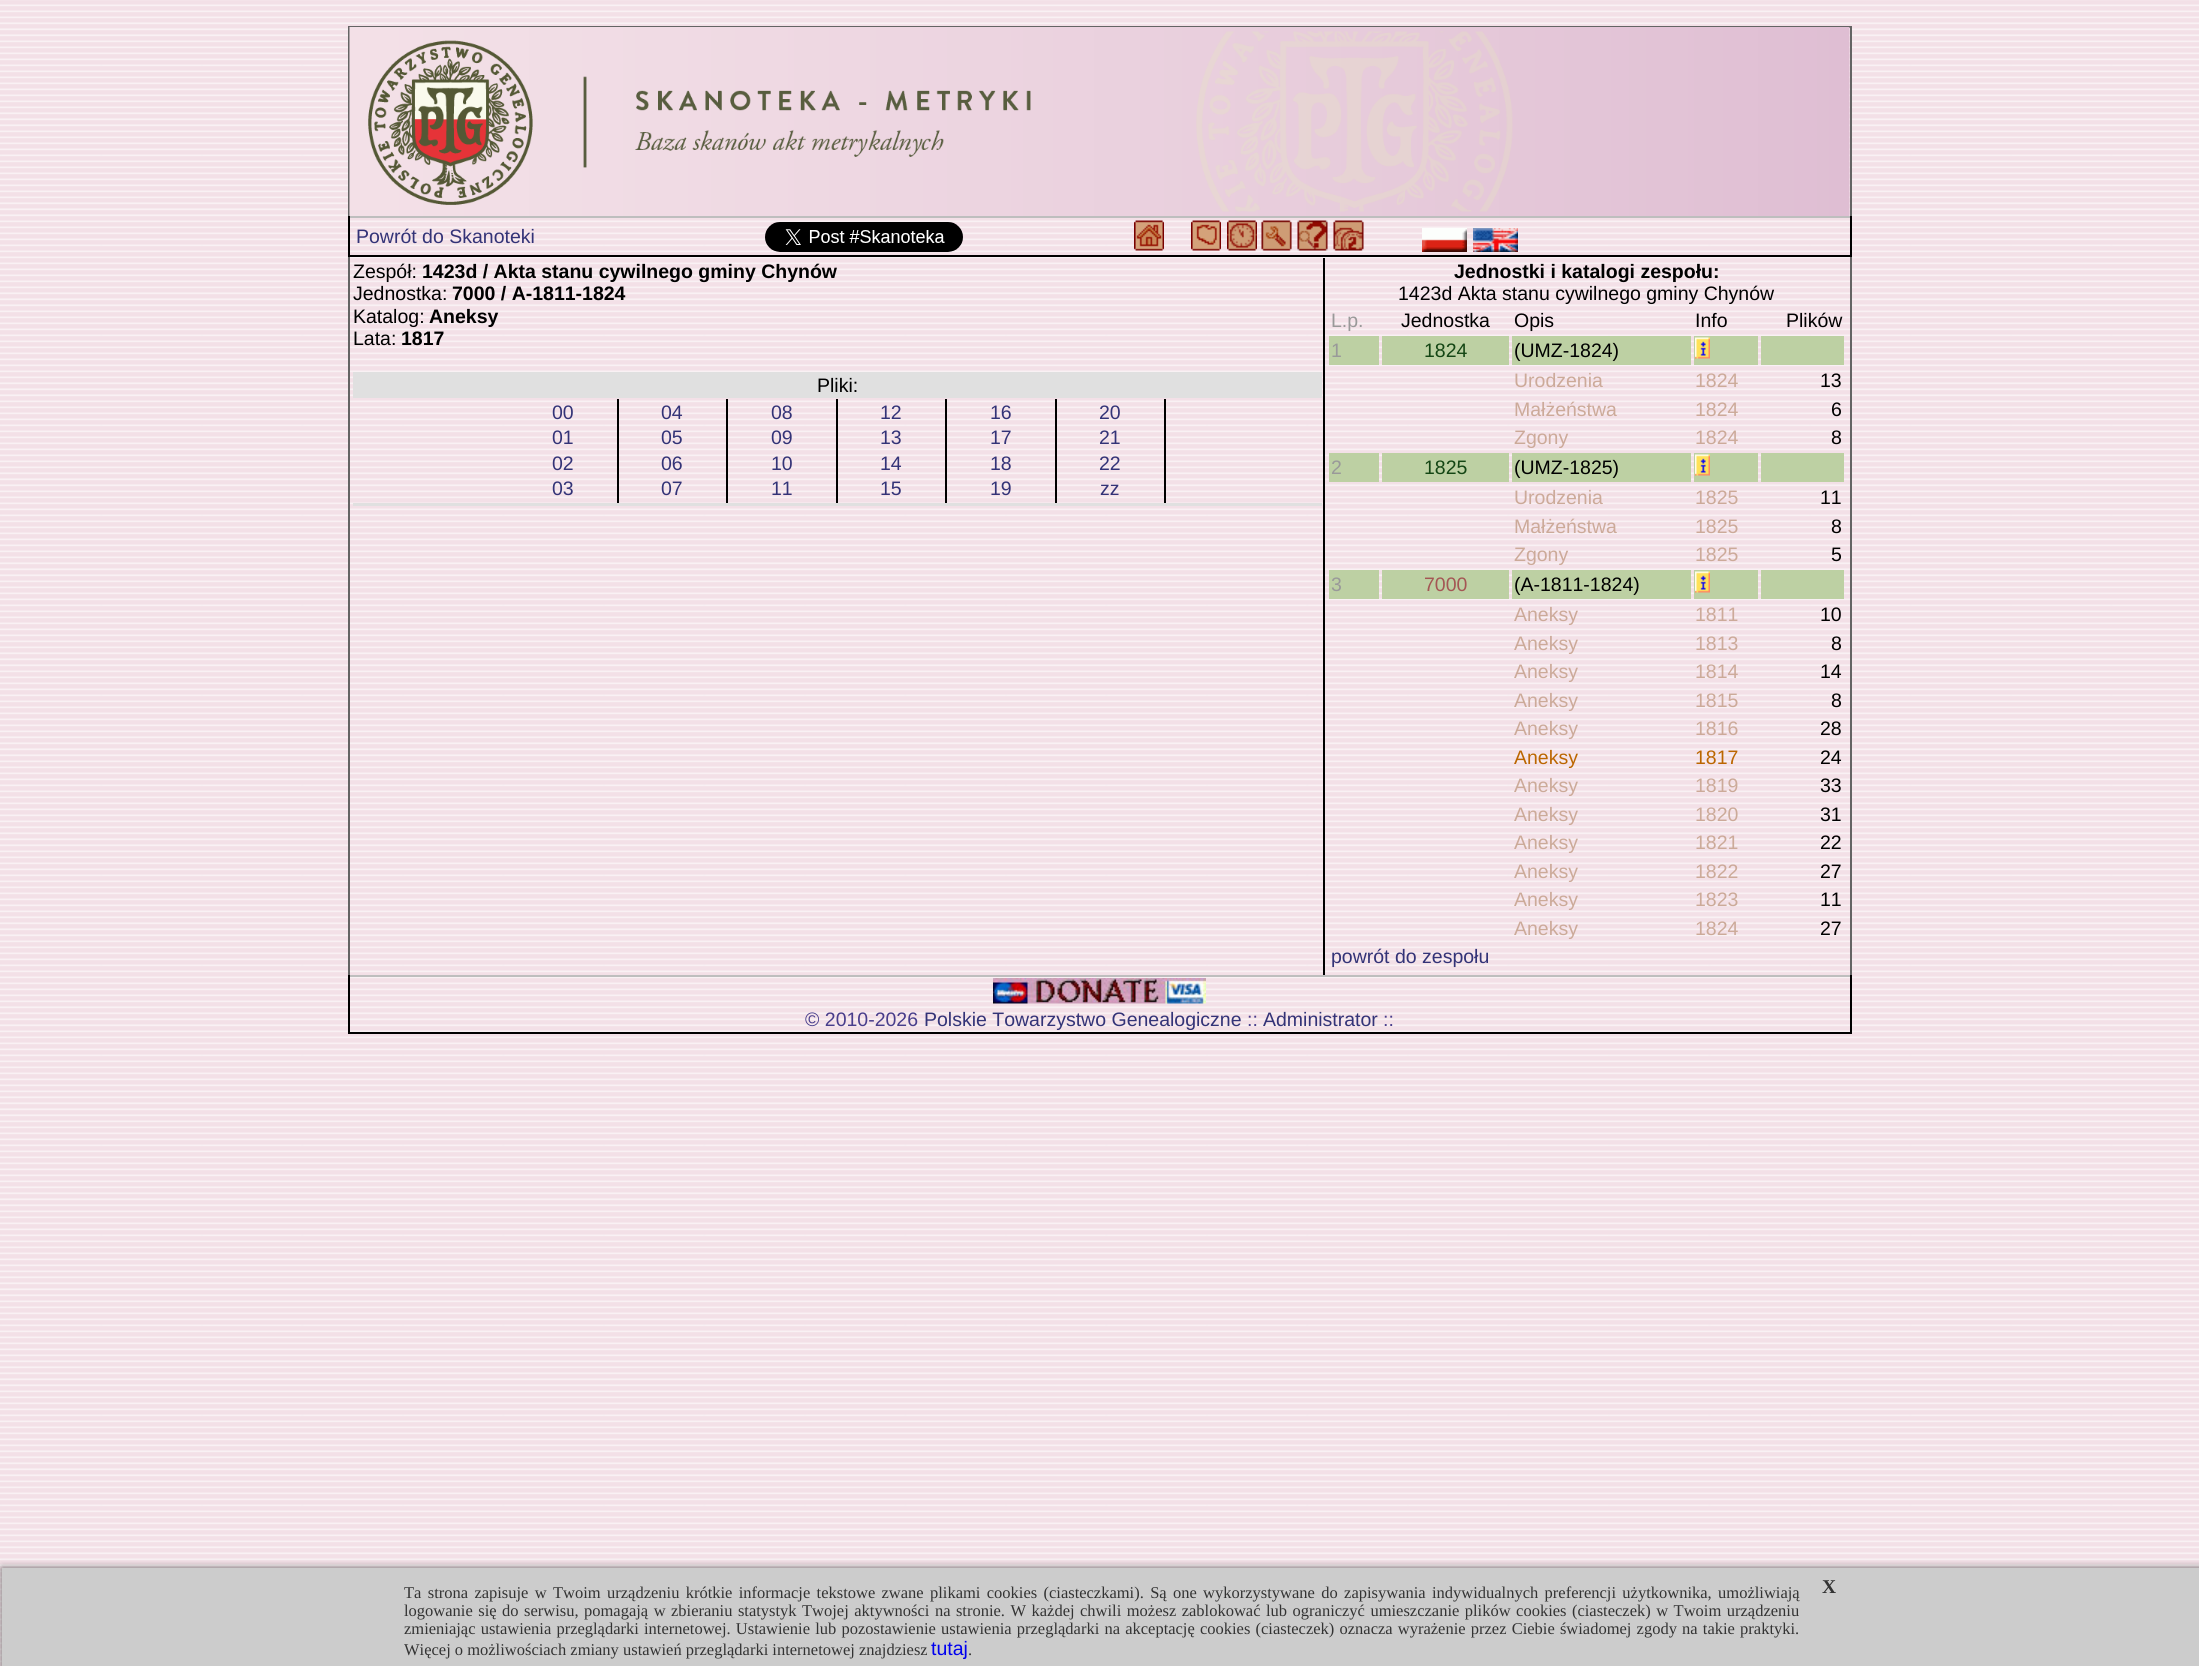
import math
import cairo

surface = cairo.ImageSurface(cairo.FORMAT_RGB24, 2199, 1666)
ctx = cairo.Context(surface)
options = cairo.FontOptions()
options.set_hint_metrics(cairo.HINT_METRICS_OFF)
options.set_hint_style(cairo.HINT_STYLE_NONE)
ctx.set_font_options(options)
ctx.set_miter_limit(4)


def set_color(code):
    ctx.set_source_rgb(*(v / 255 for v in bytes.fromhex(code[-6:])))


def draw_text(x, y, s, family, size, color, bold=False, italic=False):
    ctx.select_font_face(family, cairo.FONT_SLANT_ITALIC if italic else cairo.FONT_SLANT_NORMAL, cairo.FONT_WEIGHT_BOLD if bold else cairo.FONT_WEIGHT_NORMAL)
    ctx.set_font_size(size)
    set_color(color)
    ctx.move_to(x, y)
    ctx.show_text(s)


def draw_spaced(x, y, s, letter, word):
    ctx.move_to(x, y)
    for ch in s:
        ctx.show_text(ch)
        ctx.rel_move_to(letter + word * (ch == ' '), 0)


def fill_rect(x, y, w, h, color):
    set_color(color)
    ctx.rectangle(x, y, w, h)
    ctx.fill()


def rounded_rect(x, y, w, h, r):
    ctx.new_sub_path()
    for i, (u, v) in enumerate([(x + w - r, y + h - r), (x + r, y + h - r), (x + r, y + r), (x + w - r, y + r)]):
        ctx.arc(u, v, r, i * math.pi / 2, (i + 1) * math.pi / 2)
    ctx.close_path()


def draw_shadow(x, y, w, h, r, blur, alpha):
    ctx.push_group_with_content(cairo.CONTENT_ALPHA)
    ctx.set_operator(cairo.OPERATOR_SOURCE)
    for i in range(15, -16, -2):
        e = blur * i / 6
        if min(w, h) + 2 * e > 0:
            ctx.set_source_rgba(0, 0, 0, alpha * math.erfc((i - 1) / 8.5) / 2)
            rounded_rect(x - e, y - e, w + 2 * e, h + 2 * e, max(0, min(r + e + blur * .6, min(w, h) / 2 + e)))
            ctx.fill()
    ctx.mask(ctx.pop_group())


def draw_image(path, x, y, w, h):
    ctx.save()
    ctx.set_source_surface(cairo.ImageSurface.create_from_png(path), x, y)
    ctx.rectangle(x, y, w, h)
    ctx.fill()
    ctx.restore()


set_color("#ffffff")
ctx.paint()
draw_image("assets/img1.png", 0, 0, 2199, 1666)
fill_rect(348, 26, 1503, 2, "#646464")
fill_rect(1850, 26, 2, 949, "#646464")
fill_rect(348, 26, 2, 949, "#646464")
draw_image("assets/img2.png", 349, 27, 1501, 189)
fill_rect(348, 216, 1503, 2, "#bebebe")
fill_rect(1850, 216, 2, 41, "#000000")
fill_rect(348, 255, 1503, 2, "#000000")
fill_rect(348, 216, 2, 41, "#000000")
draw_text(356, 243, "Powrót do Skanoteki", "Liberation Sans", 19.5, "#333377")
draw_image("assets/img3.png", 765, 222, 198, 30)
draw_image("assets/img4.png", 1134, 220, 30, 31)
draw_image("assets/img5.png", 1191, 220, 30, 31)
draw_image("assets/img6.png", 1227, 220, 30, 31)
draw_image("assets/img7.png", 1261, 220, 31, 31)
draw_image("assets/img8.png", 1297, 220, 31, 31)
draw_image("assets/img9.png", 1333, 220, 31, 31)
draw_image("assets/img10.png", 1422, 228, 45, 24)
draw_image("assets/img11.png", 1473, 228, 45, 24)
draw_text(353, 278, "Zespół:", "Liberation Sans", 19.5, "#000000")
draw_text(422, 278, "1423d / Akta stanu cywilnego gminy Chynów", "Liberation Sans", 19.5, "#000000", bold=True)
draw_text(353, 300, "Jednostka:", "Liberation Sans", 19.5, "#000000")
draw_text(452, 300, "7000 / A-1811-1824", "Liberation Sans", 19.5, "#000000", bold=True)
draw_text(353, 323, "Katalog:", "Liberation Sans", 19.5, "#000000")
draw_text(429, 323, "Aneksy", "Liberation Sans", 19.5, "#000000", bold=True)
draw_text(353, 345, "Lata:", "Liberation Sans", 19.5, "#000000")
draw_text(401, 345, "1817", "Liberation Sans", 19.5, "#000000", bold=True)
fill_rect(353, 372, 969, 26, "#e0e0e0")
draw_text(817, 392, "Pliki:", "Liberation Sans", 19.5, "#000000")
draw_text(552, 419, "00", "Liberation Sans", 19.5, "#333377")
draw_text(661, 419, "04", "Liberation Sans", 19.5, "#333377")
draw_text(771, 419, "08", "Liberation Sans", 19.5, "#333377")
draw_text(880, 419, "12", "Liberation Sans", 19.5, "#333377")
draw_text(990, 419, "16", "Liberation Sans", 19.5, "#333377")
draw_text(1099, 419, "20", "Liberation Sans", 19.5, "#333377")
draw_text(552, 444, "01", "Liberation Sans", 19.5, "#333377")
draw_text(661, 444, "05", "Liberation Sans", 19.5, "#333377")
draw_text(771, 444, "09", "Liberation Sans", 19.5, "#333377")
draw_text(880, 444, "13", "Liberation Sans", 19.5, "#333377")
draw_text(990, 444, "17", "Liberation Sans", 19.5, "#333377")
draw_text(1099, 444, "21", "Liberation Sans", 19.5, "#333377")
draw_text(552, 470, "02", "Liberation Sans", 19.5, "#333377")
draw_text(661, 470, "06", "Liberation Sans", 19.5, "#333377")
draw_text(771, 470, "10", "Liberation Sans", 19.5, "#333377")
draw_text(880, 470, "14", "Liberation Sans", 19.5, "#333377")
draw_text(990, 470, "18", "Liberation Sans", 19.5, "#333377")
draw_text(1099, 470, "22", "Liberation Sans", 19.5, "#333377")
fill_rect(617, 399, 2, 104, "#000000")
draw_text(552, 495, "03", "Liberation Sans", 19.5, "#333377")
fill_rect(726, 399, 2, 104, "#000000")
draw_text(661, 495, "07", "Liberation Sans", 19.5, "#333377")
fill_rect(836, 399, 2, 104, "#000000")
draw_text(771, 495, "11", "Liberation Sans", 19.5, "#333377")
fill_rect(945, 399, 2, 104, "#000000")
draw_text(880, 495, "15", "Liberation Sans", 19.5, "#333377")
fill_rect(1055, 399, 2, 104, "#000000")
draw_text(990, 495, "19", "Liberation Sans", 19.5, "#333377")
fill_rect(1164, 399, 2, 104, "#000000")
draw_text(1100, 495, "zz", "Liberation Sans", 19.5, "#333377")
fill_rect(353, 503, 969, 3, "#e0e0e0")
fill_rect(1323, 258, 2, 717, "#000000")
draw_text(1454, 278, "Jednostki i katalogi zespołu:", "Liberation Sans", 19.5, "#000000", bold=True)
draw_text(1398, 300, "1423d Akta stanu cywilnego gminy Chynów", "Liberation Sans", 19.5, "#000000")
draw_text(1331, 327, "L.p.", "Liberation Sans", 19.5, "#999999")
draw_text(1401, 327, "Jednostka", "Liberation Sans", 19.5, "#000000")
draw_text(1514, 327, "Opis", "Liberation Sans", 19.5, "#000000")
draw_text(1695, 327, "Info", "Liberation Sans", 19.5, "#000000")
draw_text(1786, 327, "Plików", "Liberation Sans", 19.5, "#000000")
fill_rect(1329, 336, 50, 29, "#bdd0a3")
draw_text(1331, 357, "1", "Liberation Sans", 19.5, "#999999")
fill_rect(1382, 336, 127, 29, "#bdd0a3")
draw_text(1424, 357, "1824", "Liberation Sans", 19.5, "#144614")
fill_rect(1512, 336, 179, 29, "#bdd0a3")
draw_text(1514, 357, "(UMZ-1824)", "Liberation Sans", 19.5, "#000000")
fill_rect(1694, 336, 64, 29, "#bdd0a3")
draw_image("assets/img12.png", 1695, 337, 15, 22)
fill_rect(1761, 336, 83, 29, "#bdd0a3")
draw_text(1514, 387, "Urodzenia", "Liberation Sans", 19.5, "#ccaa99")
draw_text(1695, 387, "1824", "Liberation Sans", 19.5, "#ccaa99")
draw_text(1820, 387, "13", "Liberation Sans", 19.5, "#000000")
draw_text(1514, 416, "Małżeństwa", "Liberation Sans", 19.5, "#ccaa99")
draw_text(1695, 416, "1824", "Liberation Sans", 19.5, "#ccaa99")
draw_text(1831, 416, "6", "Liberation Sans", 19.5, "#000000")
draw_text(1514, 444, "Zgony", "Liberation Sans", 19.5, "#ccaa99")
draw_text(1695, 444, "1824", "Liberation Sans", 19.5, "#ccaa99")
draw_text(1831, 444, "8", "Liberation Sans", 19.5, "#000000")
fill_rect(1329, 453, 50, 29, "#bdd0a3")
draw_text(1331, 474, "2", "Liberation Sans", 19.5, "#999999")
fill_rect(1382, 453, 127, 29, "#bdd0a3")
draw_text(1424, 474, "1825", "Liberation Sans", 19.5, "#144614")
fill_rect(1512, 453, 179, 29, "#bdd0a3")
draw_text(1514, 474, "(UMZ-1825)", "Liberation Sans", 19.5, "#000000")
fill_rect(1694, 453, 64, 29, "#bdd0a3")
draw_image("assets/img12.png", 1695, 454, 15, 22)
fill_rect(1761, 453, 83, 29, "#bdd0a3")
draw_text(1514, 504, "Urodzenia", "Liberation Sans", 19.5, "#ccaa99")
draw_text(1695, 504, "1825", "Liberation Sans", 19.5, "#ccaa99")
draw_text(1820, 504, "11", "Liberation Sans", 19.5, "#000000")
draw_text(1514, 533, "Małżeństwa", "Liberation Sans", 19.5, "#ccaa99")
draw_text(1695, 533, "1825", "Liberation Sans", 19.5, "#ccaa99")
draw_text(1831, 533, "8", "Liberation Sans", 19.5, "#000000")
draw_text(1514, 561, "Zgony", "Liberation Sans", 19.5, "#ccaa99")
draw_text(1695, 561, "1825", "Liberation Sans", 19.5, "#ccaa99")
draw_text(1831, 561, "5", "Liberation Sans", 19.5, "#000000")
fill_rect(1329, 570, 50, 29, "#bdd0a3")
draw_text(1331, 591, "3", "Liberation Sans", 19.5, "#999999")
fill_rect(1382, 570, 127, 29, "#bdd0a3")
draw_text(1424, 591, "7000", "Liberation Sans", 19.5, "#a45654")
fill_rect(1512, 570, 179, 29, "#bdd0a3")
draw_text(1514, 591, "(A-1811-1824)", "Liberation Sans", 19.5, "#000000")
fill_rect(1694, 570, 64, 29, "#bdd0a3")
draw_image("assets/img12.png", 1695, 571, 15, 22)
fill_rect(1761, 570, 83, 29, "#bdd0a3")
draw_text(1514, 621, "Aneksy", "Liberation Sans", 19.5, "#ccaa99")
draw_text(1695, 621, "1811", "Liberation Sans", 19.5, "#ccaa99")
draw_text(1820, 621, "10", "Liberation Sans", 19.5, "#000000")
draw_text(1514, 650, "Aneksy", "Liberation Sans", 19.5, "#ccaa99")
draw_text(1695, 650, "1813", "Liberation Sans", 19.5, "#ccaa99")
draw_text(1831, 650, "8", "Liberation Sans", 19.5, "#000000")
draw_text(1514, 678, "Aneksy", "Liberation Sans", 19.5, "#ccaa99")
draw_text(1695, 678, "1814", "Liberation Sans", 19.5, "#ccaa99")
draw_text(1820, 678, "14", "Liberation Sans", 19.5, "#000000")
draw_text(1514, 707, "Aneksy", "Liberation Sans", 19.5, "#ccaa99")
draw_text(1695, 707, "1815", "Liberation Sans", 19.5, "#ccaa99")
draw_text(1831, 707, "8", "Liberation Sans", 19.5, "#000000")
draw_text(1514, 735, "Aneksy", "Liberation Sans", 19.5, "#ccaa99")
draw_text(1695, 735, "1816", "Liberation Sans", 19.5, "#ccaa99")
draw_text(1820, 735, "28", "Liberation Sans", 19.5, "#000000")
draw_text(1514, 764, "Aneksy", "Liberation Sans", 19.5, "#bb6600")
draw_text(1695, 764, "1817", "Liberation Sans", 19.5, "#bb6600")
draw_text(1820, 764, "24", "Liberation Sans", 19.5, "#000000")
draw_text(1514, 792, "Aneksy", "Liberation Sans", 19.5, "#ccaa99")
draw_text(1695, 792, "1819", "Liberation Sans", 19.5, "#ccaa99")
draw_text(1820, 792, "33", "Liberation Sans", 19.5, "#000000")
draw_text(1514, 821, "Aneksy", "Liberation Sans", 19.5, "#ccaa99")
draw_text(1695, 821, "1820", "Liberation Sans", 19.5, "#ccaa99")
draw_text(1820, 821, "31", "Liberation Sans", 19.5, "#000000")
draw_text(1514, 849, "Aneksy", "Liberation Sans", 19.5, "#ccaa99")
draw_text(1695, 849, "1821", "Liberation Sans", 19.5, "#ccaa99")
draw_text(1820, 849, "22", "Liberation Sans", 19.5, "#000000")
draw_text(1514, 878, "Aneksy", "Liberation Sans", 19.5, "#ccaa99")
draw_text(1695, 878, "1822", "Liberation Sans", 19.5, "#ccaa99")
draw_text(1820, 878, "27", "Liberation Sans", 19.5, "#000000")
draw_text(1514, 906, "Aneksy", "Liberation Sans", 19.5, "#ccaa99")
draw_text(1695, 906, "1823", "Liberation Sans", 19.5, "#ccaa99")
draw_text(1820, 906, "11", "Liberation Sans", 19.5, "#000000")
draw_text(1514, 935, "Aneksy", "Liberation Sans", 19.5, "#ccaa99")
draw_text(1695, 935, "1824", "Liberation Sans", 19.5, "#ccaa99")
draw_text(1820, 935, "27", "Liberation Sans", 19.5, "#000000")
draw_text(1331, 963, "powrót do zespołu", "Liberation Sans", 19.5, "#333377")
fill_rect(348, 975, 1503, 2, "#bebebe")
fill_rect(1850, 975, 2, 59, "#000000")
fill_rect(348, 1032, 1503, 2, "#000000")
fill_rect(348, 975, 2, 59, "#000000")
draw_image("assets/img13.png", 993, 978, 213, 26)
draw_text(805, 1026, "© 2010-2026", "Liberation Sans", 19.5, "#483d8b")
draw_text(924, 1026, "Polskie Towarzystwo Genealogiczne", "Liberation Sans", 19.5, "#333377")
draw_text(1247, 1026, "::", "Liberation Sans", 19.5, "#483d8b")
draw_text(1263, 1026, "Administrator", "Liberation Sans", 19.5, "#333377")
draw_text(1383, 1026, "::", "Liberation Sans", 19.5, "#483d8b")
set_color("#666666")
draw_shadow(2, 1568, 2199, 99, 0, 4, 1)
fill_rect(2, 1568, 2197, 98, "#cccccc")
ctx.select_font_face("Liberation Serif")
ctx.set_font_size(16.5)
set_color("#333333")
draw_spaced(404, 1598, "Ta strona zapisuje w Twoim urządzeniu krótkie informacje tekstowe zwane plikami cookies (ciasteczkami). Są one wykorzystywane do zapisywania indywidualnych preferencji użytkownika, umożliwiają", 0, 2.2)
draw_text(1822, 1593, "X", "Liberation Serif", 19.5, "#333333", bold=True)
ctx.select_font_face("Liberation Serif")
ctx.set_font_size(16.5)
draw_spaced(404, 1616, "logowanie się do serwisu, pomagają w zbieraniu statystyk Twojej aktywności na stronie. W każdej chwili możesz zablokować lub ograniczyć umieszczanie plików cookies (ciasteczek) w Twoim urządzeniu", 0, 1.35)
draw_spaced(404, 1634, "zmieniając ustawienia przeglądarki internetowej. Ustawienie lub pozostawienie ustawienia przeglądarki na akceptację cookies (ciasteczek) oznacza wyrażenie przez Ciebie świadomej zgody na takie praktyki.", 0, 1.05)
draw_text(404, 1655, "Więcej o możliwościach zmiany ustawień przeglądarki internetowej znajdziesz", "Liberation Serif", 16.5, "#333333")
draw_text(931, 1655, "tutaj", "Liberation Sans", 19.5, "#0000ee")
draw_text(968, 1655, ".", "Liberation Serif", 16.5, "#333333")
surface.write_to_png("output.png")
